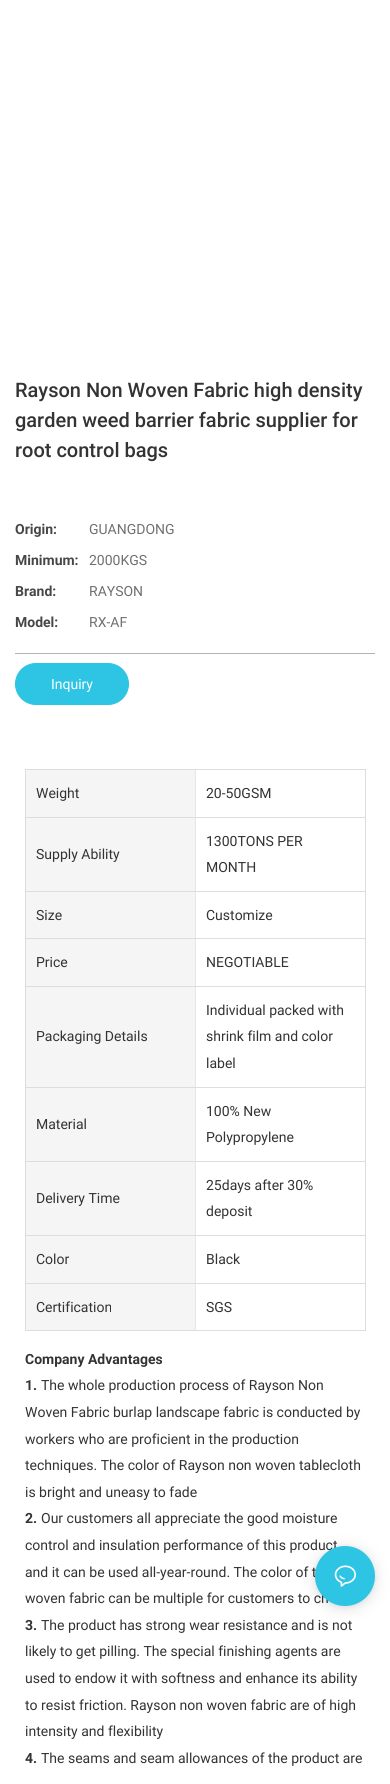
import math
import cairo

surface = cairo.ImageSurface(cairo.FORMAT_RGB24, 390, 1784)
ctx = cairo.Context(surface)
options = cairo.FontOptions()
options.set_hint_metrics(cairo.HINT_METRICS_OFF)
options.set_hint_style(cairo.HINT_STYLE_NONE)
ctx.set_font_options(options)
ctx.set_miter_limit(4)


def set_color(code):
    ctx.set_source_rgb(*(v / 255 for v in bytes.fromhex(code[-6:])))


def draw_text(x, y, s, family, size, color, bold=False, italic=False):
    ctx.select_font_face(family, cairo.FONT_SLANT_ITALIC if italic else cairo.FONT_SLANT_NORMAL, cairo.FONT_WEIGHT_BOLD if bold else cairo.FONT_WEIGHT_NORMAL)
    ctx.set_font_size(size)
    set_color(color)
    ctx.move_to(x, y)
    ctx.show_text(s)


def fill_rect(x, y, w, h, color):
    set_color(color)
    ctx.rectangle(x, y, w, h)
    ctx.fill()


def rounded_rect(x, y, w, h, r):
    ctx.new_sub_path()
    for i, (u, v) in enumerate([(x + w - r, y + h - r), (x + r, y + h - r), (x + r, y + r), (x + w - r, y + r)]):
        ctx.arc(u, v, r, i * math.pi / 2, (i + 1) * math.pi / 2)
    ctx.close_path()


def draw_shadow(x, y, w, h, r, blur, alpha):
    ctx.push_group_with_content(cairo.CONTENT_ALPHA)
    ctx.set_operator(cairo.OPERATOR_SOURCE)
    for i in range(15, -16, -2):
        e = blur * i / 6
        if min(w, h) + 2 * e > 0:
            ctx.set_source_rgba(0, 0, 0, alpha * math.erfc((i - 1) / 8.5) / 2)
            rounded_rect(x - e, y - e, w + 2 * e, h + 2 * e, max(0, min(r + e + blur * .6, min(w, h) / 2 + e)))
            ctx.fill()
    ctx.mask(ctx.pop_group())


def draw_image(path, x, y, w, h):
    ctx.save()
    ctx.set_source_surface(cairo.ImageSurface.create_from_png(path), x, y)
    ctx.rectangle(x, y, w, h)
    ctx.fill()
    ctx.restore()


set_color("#ffffff")
ctx.paint()
draw_text(15, 397, "Rayson Non Woven Fabric high density", "Roboto Medium", 20, "#333333")
draw_text(15, 427, "garden weed barrier fabric supplier for", "Roboto Medium", 20, "#333333")
draw_text(15, 457, "root control bags", "Roboto Medium", 20, "#333333")
fill_rect(15, 653, 360, 1, "#b3b3b3")
draw_text(15, 534, "Origin:", "Roboto", 14, "#474747", bold=True)
draw_text(89, 534, "GUANGDONG", "Roboto", 14, "#707070")
draw_text(15, 565, "Minimum:", "Roboto", 14, "#474747", bold=True)
draw_text(89, 565, "2000KGS", "Roboto", 14, "#707070")
draw_text(15, 596, "Brand:", "Roboto", 14, "#474747", bold=True)
draw_text(89, 596, "RAYSON", "Roboto", 14, "#707070")
draw_text(15, 627, "Model:", "Roboto", 14, "#474747", bold=True)
draw_text(89, 627, "RX-AF", "Roboto", 14, "#707070")
set_color("#2ec4e4")
rounded_rect(15.5, 663.5, 113, 41, 20.5)
ctx.fill_preserve()
ctx.set_line_width(1)
ctx.stroke()
draw_text(51, 689, "Inquiry", "Roboto", 14, "#ffffff")
ctx.rectangle(25.5, 769.5, 340, 48)
set_color("#dddddd")
ctx.stroke()
fill_rect(26, 770, 169, 47, "#f5f5f5")
fill_rect(195, 770, 1, 47, "#e6e6e6")
draw_text(36, 798, "Weight", "Roboto", 14, "#333333")
draw_text(206, 798, "20-50GSM", "Roboto", 14, "#333333")
ctx.rectangle(25.5, 817.5, 340, 74)
set_color("#dddddd")
ctx.stroke()
fill_rect(26, 818, 169, 73, "#f5f5f5")
fill_rect(195, 818, 1, 73, "#e6e6e6")
draw_text(36, 859, "Supply Ability", "Roboto", 14, "#333333")
draw_text(206, 846, "1300TONS PER", "Roboto", 14, "#333333")
draw_text(206, 872, "MONTH", "Roboto", 14, "#333333")
ctx.rectangle(25.5, 891.5, 340, 47)
set_color("#dddddd")
ctx.stroke()
fill_rect(26, 892, 169, 46, "#f5f5f5")
fill_rect(195, 892, 1, 46, "#e6e6e6")
draw_text(36, 920, "Size", "Roboto", 14, "#333333")
draw_text(206, 920, "Customize", "Roboto", 14, "#333333")
ctx.rectangle(25.5, 938.5, 340, 48)
set_color("#dddddd")
ctx.stroke()
fill_rect(26, 939, 169, 47, "#f5f5f5")
fill_rect(195, 939, 1, 47, "#e6e6e6")
draw_text(36, 967, "Price", "Roboto", 14, "#333333")
draw_text(206, 967, "NEGOTIABLE", "Roboto", 14, "#333333")
ctx.rectangle(25.5, 986.5, 340, 101)
set_color("#dddddd")
ctx.stroke()
fill_rect(26, 987, 169, 100, "#f5f5f5")
fill_rect(195, 987, 1, 100, "#e6e6e6")
draw_text(36, 1041, "Packaging Details", "Roboto", 14, "#333333")
draw_text(206, 1015, "Individual packed with", "Roboto", 14, "#333333")
draw_text(206, 1041, "shrink film and color", "Roboto", 14, "#333333")
draw_text(206, 1068, "label", "Roboto", 14, "#333333")
ctx.rectangle(25.5, 1087.5, 340, 74)
set_color("#dddddd")
ctx.stroke()
fill_rect(26, 1088, 169, 73, "#f5f5f5")
fill_rect(195, 1088, 1, 73, "#e6e6e6")
draw_text(36, 1129, "Material", "Roboto", 14, "#333333")
draw_text(206, 1116, "100% New", "Roboto", 14, "#333333")
draw_text(206, 1142, "Polypropylene", "Roboto", 14, "#333333")
ctx.rectangle(25.5, 1161.5, 340, 74)
set_color("#dddddd")
ctx.stroke()
fill_rect(26, 1162, 169, 73, "#f5f5f5")
fill_rect(195, 1162, 1, 73, "#e6e6e6")
draw_text(36, 1203, "Delivery Time", "Roboto", 14, "#333333")
draw_text(206, 1190, "25days after 30%", "Roboto", 14, "#333333")
draw_text(206, 1216, "deposit", "Roboto", 14, "#333333")
ctx.rectangle(25.5, 1235.5, 340, 48)
set_color("#dddddd")
ctx.stroke()
fill_rect(26, 1236, 169, 47, "#f5f5f5")
fill_rect(195, 1236, 1, 47, "#e6e6e6")
draw_text(36, 1264, "Color", "Roboto", 14, "#333333")
draw_text(206, 1264, "Black", "Roboto", 14, "#333333")
ctx.rectangle(25.5, 1283.5, 340, 47)
set_color("#dddddd")
ctx.stroke()
fill_rect(26, 1284, 169, 46, "#f5f5f5")
fill_rect(195, 1284, 1, 46, "#e6e6e6")
draw_text(36, 1312, "Certification", "Roboto", 14, "#333333")
draw_text(206, 1312, "SGS", "Roboto", 14, "#333333")
draw_text(25, 1364, "Company Advantages", "Roboto", 14, "#333333", bold=True)
draw_text(25, 1390, "1.", "Roboto", 14, "#333333", bold=True)
draw_text(41, 1390, "The whole production process of Rayson Non", "Roboto", 14, "#333333")
draw_text(25, 1417, "Woven Fabric burlap landscape fabric is conducted by", "Roboto", 14, "#333333")
draw_text(25, 1444, "workers who are proficient in the production", "Roboto", 14, "#333333")
draw_text(25, 1470, "techniques. The color of Rayson non woven tablecloth", "Roboto", 14, "#333333")
draw_text(25, 1497, "is bright and uneasy to fade", "Roboto", 14, "#333333")
draw_text(25, 1523, "2.", "Roboto", 14, "#333333", bold=True)
draw_text(41, 1523, "Our customers all appreciate the good moisture", "Roboto", 14, "#333333")
draw_text(25, 1550, "control and insulation performance of this product", "Roboto", 14, "#333333")
draw_text(25, 1577, "and it can be used all-year-round. The color of t", "Roboto", 14, "#333333")
draw_text(25, 1603, "woven fabric can be multiple for customers to ch", "Roboto", 14, "#333333")
draw_text(25, 1630, "3.", "Roboto", 14, "#333333", bold=True)
draw_text(41, 1630, "The product has strong wear resistance and is not", "Roboto", 14, "#333333")
draw_text(25, 1656, "likely to get pilling. The special finishing agents are", "Roboto", 14, "#333333")
draw_text(25, 1683, "used to endow it with softness and enhance its ability", "Roboto", 14, "#333333")
draw_text(25, 1710, "to resist friction. Rayson non woven fabric are of high", "Roboto", 14, "#333333")
draw_text(25, 1736, "intensity and flexibility", "Roboto", 14, "#333333")
draw_text(25, 1763, "4.", "Roboto", 14, "#333333", bold=True)
draw_text(41, 1763, "The seams and seam allowances of the product are", "Roboto", 14, "#333333")
set_color("#000000")
draw_shadow(315, 1548, 60, 60, 30, 8, 0.12)
draw_shadow(315, 1547, 60, 60, 30, 2, 0.06)
set_color("#2ec4e4")
ctx.arc(345, 1576, 30, 0, 2 * math.pi)
ctx.fill()
draw_image("assets/img1.png", 334, 1565, 22, 22)
surface.write_to_png("output.png")
